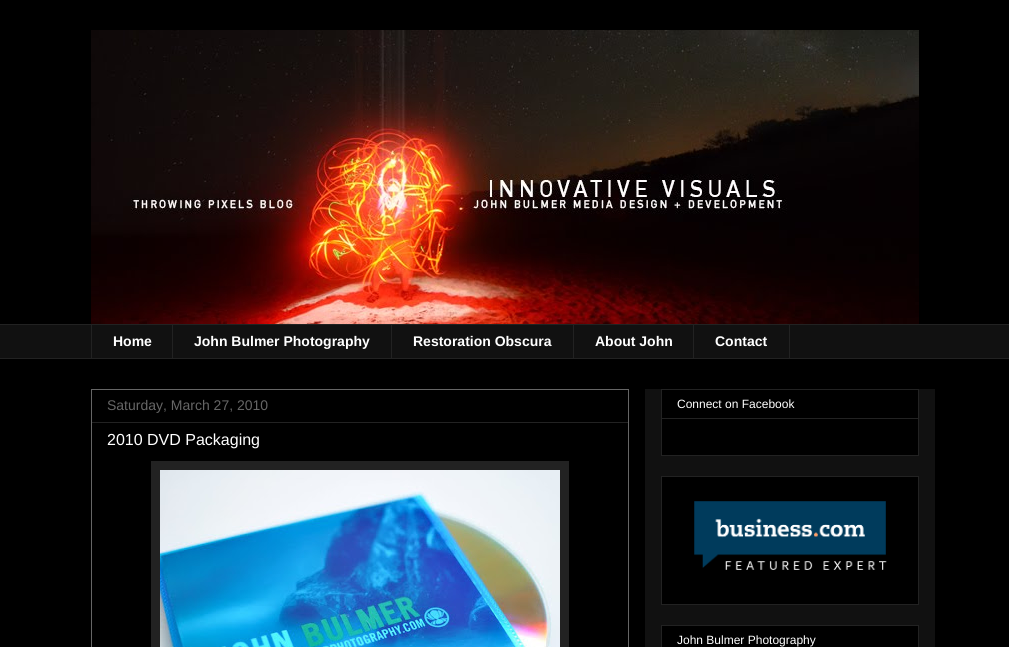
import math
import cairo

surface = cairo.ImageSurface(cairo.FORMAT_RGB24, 1009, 647)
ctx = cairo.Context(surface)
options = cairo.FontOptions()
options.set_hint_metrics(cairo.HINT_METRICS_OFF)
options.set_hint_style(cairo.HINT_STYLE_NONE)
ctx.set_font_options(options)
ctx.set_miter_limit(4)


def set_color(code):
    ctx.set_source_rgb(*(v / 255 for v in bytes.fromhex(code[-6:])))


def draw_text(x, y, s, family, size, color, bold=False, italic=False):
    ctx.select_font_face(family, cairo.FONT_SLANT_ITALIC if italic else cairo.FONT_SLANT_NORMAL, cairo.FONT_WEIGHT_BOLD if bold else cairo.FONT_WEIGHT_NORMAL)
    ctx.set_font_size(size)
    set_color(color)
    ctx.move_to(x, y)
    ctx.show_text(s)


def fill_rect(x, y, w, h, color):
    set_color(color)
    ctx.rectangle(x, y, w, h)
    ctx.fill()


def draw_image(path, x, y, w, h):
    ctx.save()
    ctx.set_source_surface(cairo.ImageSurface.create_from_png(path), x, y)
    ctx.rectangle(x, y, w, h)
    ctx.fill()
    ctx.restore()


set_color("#000000")
ctx.paint()
draw_image("assets/img1.png", 91, 30, 828, 294)
fill_rect(0, 325, 1009, 33, "#111111")
fill_rect(0, 324, 1009, 1, "#222222")
fill_rect(91, 324, 1, 35, "#222222")
draw_text(113, 346, "Home", "Liberation Sans", 14, "#ffffff", bold=True)
fill_rect(172, 324, 1, 35, "#222222")
draw_text(194, 346, "John Bulmer Photography", "Liberation Sans", 14, "#ffffff", bold=True)
fill_rect(391, 324, 1, 35, "#222222")
draw_text(413, 346, "Restoration Obscura", "Liberation Sans", 14, "#ffffff", bold=True)
fill_rect(573, 324, 1, 35, "#222222")
draw_text(595, 346, "About John", "Liberation Sans", 14, "#ffffff", bold=True)
ctx.rectangle(693.5, 324.5, 96, 34)
set_color("#222222")
ctx.set_line_width(1)
ctx.stroke()
draw_text(715, 346, "Contact", "Liberation Sans", 14, "#ffffff", bold=True)
fill_rect(0, 358, 1009, 1, "#222222")
ctx.rectangle(91.5, 389.5, 537, 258)
set_color("#666666")
ctx.stroke()
draw_text(107, 410, "Saturday, March 27, 2010", "Liberation Sans", 14, "#666666")
fill_rect(92, 422, 536, 1, "#222222")
draw_text(107, 445, "2010 DVD Packaging", "Liberation Sans", 16, "#ffffff")
fill_rect(151, 461, 418, 186, "#222222")
draw_image("assets/img2.png", 160, 470, 400, 177)
fill_rect(645, 389, 290, 258, "#111111")
set_color("#000000")
ctx.rectangle(661.5, 389.5, 257, 66)
ctx.fill_preserve()
set_color("#222222")
ctx.stroke()
draw_text(677, 408, "Connect on Facebook", "Liberation Sans", 12, "#ffffff")
fill_rect(662, 418, 256, 1, "#222222")
set_color("#000000")
ctx.rectangle(661.5, 476.5, 257, 128)
ctx.fill_preserve()
set_color("#222222")
ctx.stroke()
draw_image("assets/img3.png", 694, 501, 193, 69)
set_color("#000000")
ctx.rectangle(661.5, 625.5, 257, 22)
ctx.fill_preserve()
set_color("#222222")
ctx.stroke()
draw_text(677, 644, "John Bulmer Photography", "Liberation Sans", 12, "#ffffff")
surface.write_to_png("output.png")
